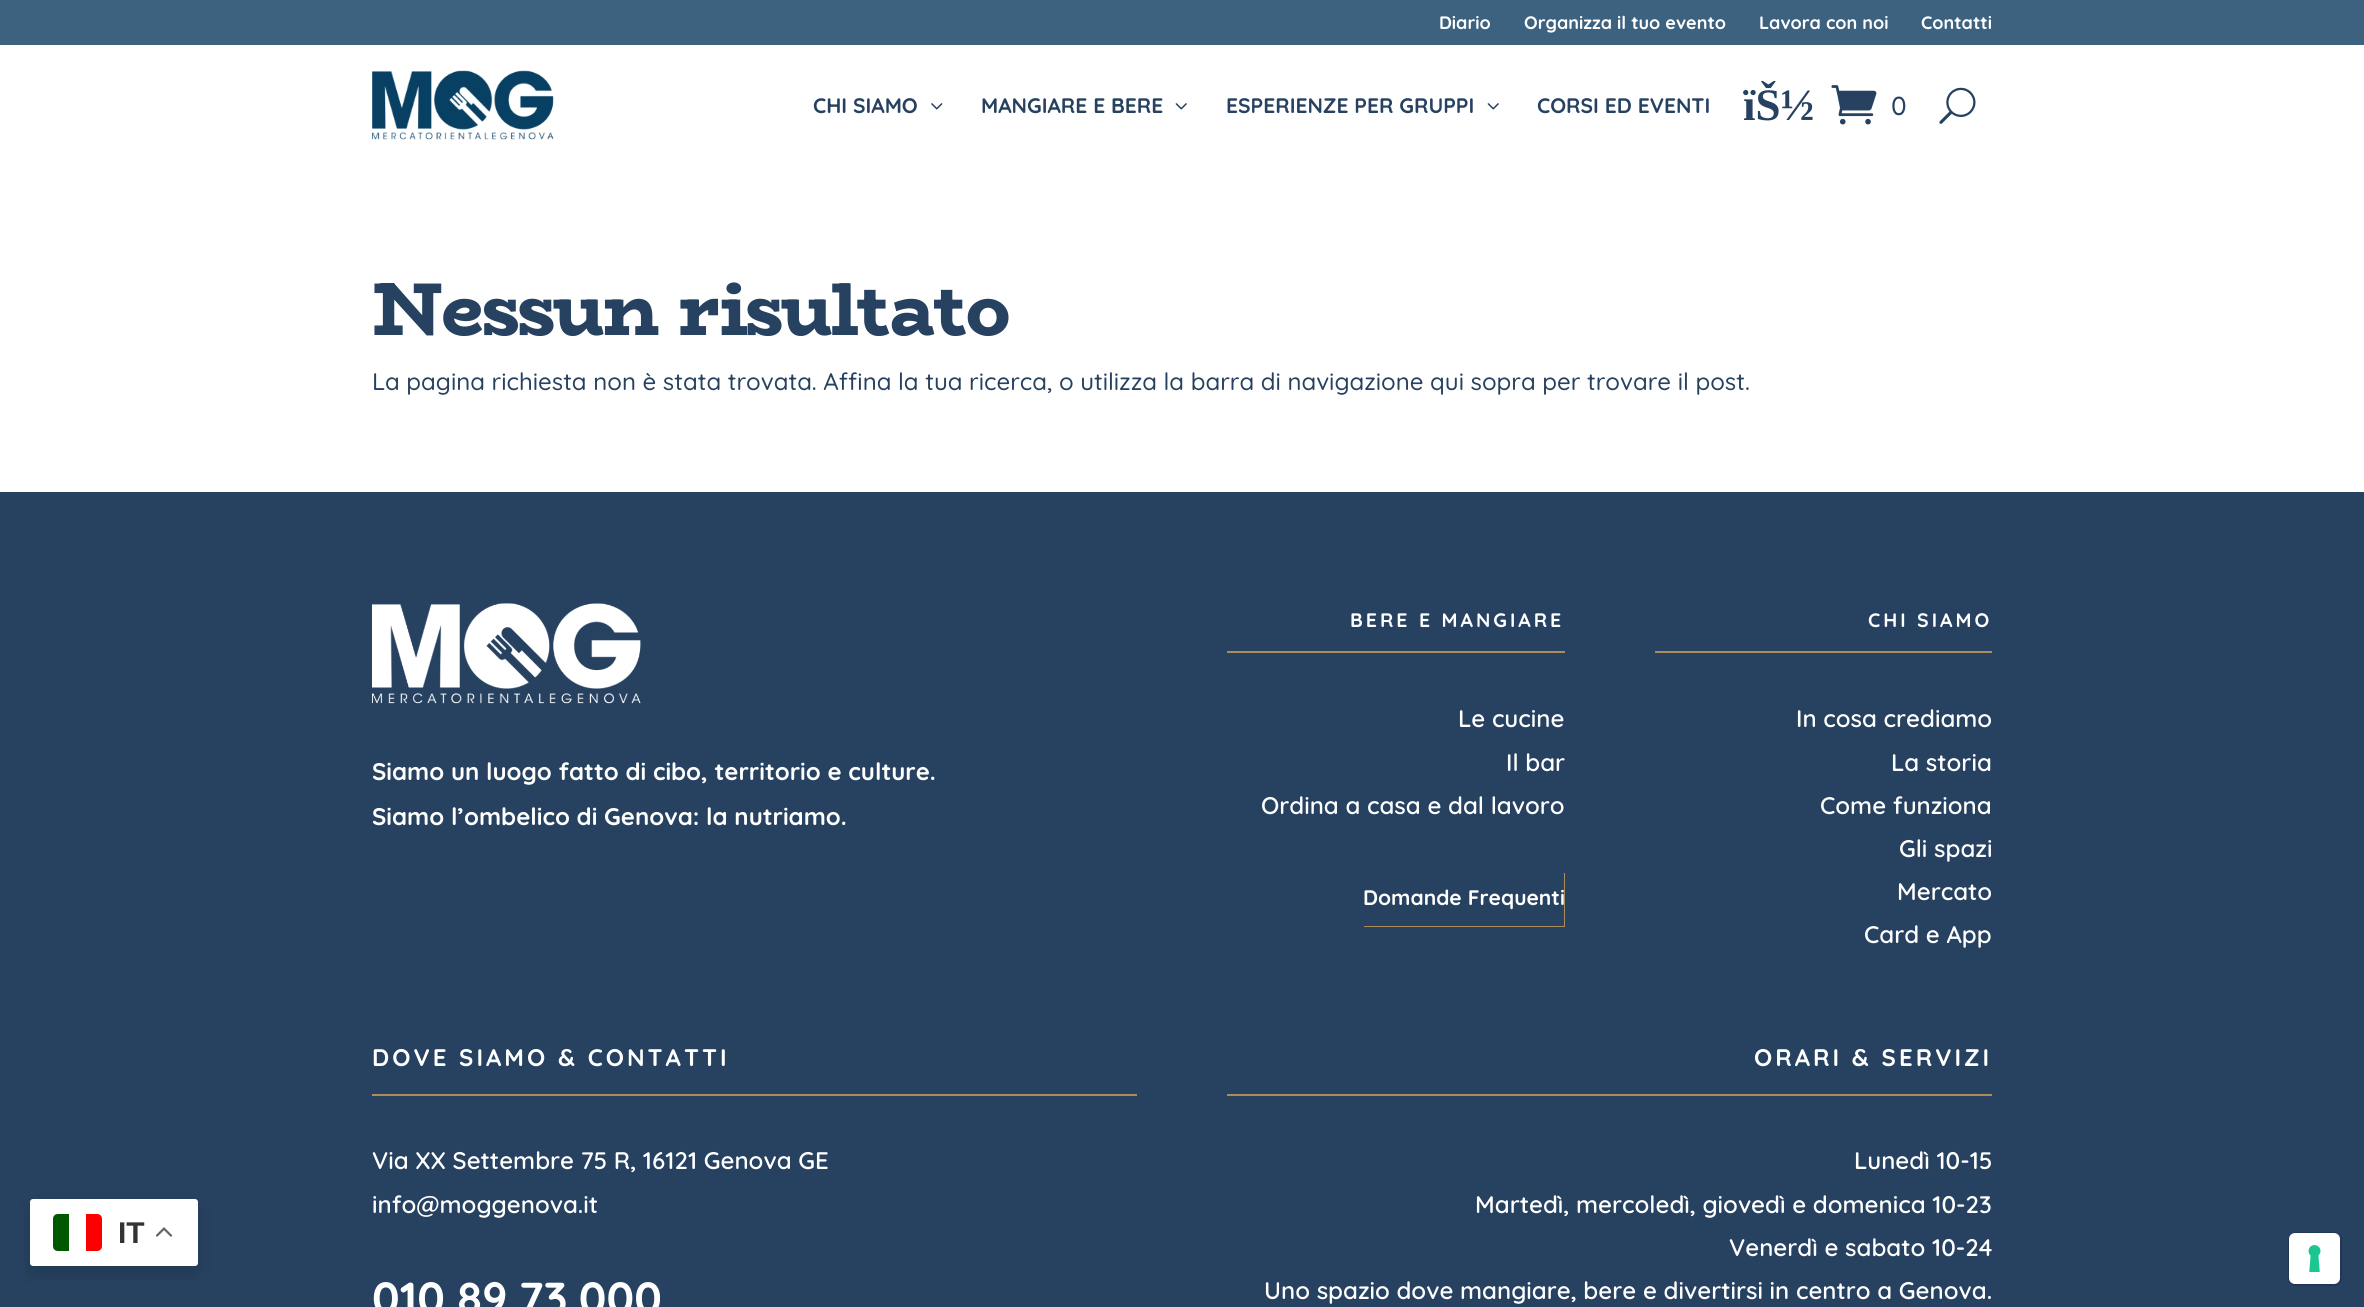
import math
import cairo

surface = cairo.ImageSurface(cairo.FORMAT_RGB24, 2364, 1307)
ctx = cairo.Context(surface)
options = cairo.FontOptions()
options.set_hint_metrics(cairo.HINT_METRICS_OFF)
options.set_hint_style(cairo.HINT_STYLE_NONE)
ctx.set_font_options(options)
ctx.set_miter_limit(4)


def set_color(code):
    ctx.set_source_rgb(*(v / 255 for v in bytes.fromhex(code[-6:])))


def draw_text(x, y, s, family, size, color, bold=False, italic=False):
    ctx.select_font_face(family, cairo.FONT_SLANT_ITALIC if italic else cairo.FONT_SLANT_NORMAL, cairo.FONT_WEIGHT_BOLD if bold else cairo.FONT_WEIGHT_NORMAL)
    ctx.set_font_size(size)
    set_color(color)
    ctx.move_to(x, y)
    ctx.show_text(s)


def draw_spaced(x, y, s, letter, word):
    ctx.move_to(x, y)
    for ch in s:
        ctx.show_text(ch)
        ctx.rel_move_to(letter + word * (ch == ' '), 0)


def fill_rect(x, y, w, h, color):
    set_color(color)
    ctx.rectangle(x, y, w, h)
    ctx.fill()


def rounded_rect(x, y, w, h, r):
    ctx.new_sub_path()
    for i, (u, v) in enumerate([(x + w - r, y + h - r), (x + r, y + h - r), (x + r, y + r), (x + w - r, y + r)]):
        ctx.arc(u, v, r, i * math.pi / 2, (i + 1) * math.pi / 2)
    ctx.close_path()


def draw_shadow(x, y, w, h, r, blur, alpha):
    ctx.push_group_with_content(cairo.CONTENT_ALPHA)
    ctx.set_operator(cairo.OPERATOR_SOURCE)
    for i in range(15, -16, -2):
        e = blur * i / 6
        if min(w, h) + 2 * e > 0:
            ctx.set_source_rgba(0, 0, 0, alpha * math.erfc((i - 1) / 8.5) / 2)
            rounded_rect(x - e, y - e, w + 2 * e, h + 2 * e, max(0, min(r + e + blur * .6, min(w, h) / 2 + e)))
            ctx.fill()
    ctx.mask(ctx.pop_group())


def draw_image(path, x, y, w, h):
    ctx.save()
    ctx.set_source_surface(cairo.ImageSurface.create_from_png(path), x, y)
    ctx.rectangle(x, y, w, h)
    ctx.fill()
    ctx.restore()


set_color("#ffffff")
ctx.paint()
fill_rect(0, 492, 2364, 815, "#274261")
set_color("#000000")
draw_shadow(30, 1206, 168, 68, 3, 11, 0.15)
set_color("#ffffff")
rounded_rect(30, 1199, 168, 67, 3)
ctx.fill()
set_color("#005700")
ctx.new_path()
ctx.move_to(58, 1214)
ctx.line_to(69, 1214)
ctx.line_to(69, 1251)
ctx.line_to(58, 1251)
ctx.curve_to(55, 1251, 53, 1249, 53, 1246)
ctx.line_to(53, 1219)
ctx.curve_to(53, 1216, 55, 1214, 58, 1214)
ctx.close_path()
ctx.fill()
set_color("#fc0000")
ctx.new_path()
ctx.move_to(86, 1214)
ctx.line_to(97, 1214)
ctx.curve_to(100, 1214, 102, 1216, 102, 1219)
ctx.line_to(102, 1246)
ctx.curve_to(102, 1249, 100, 1251, 97, 1251)
ctx.line_to(86, 1251)
ctx.close_path()
ctx.fill()
draw_text(118, 1243, "IT", "Liberation Sans", 30, "#333333", bold=True)
draw_image("assets/img1.png", 156, 1227, 17, 10)
fill_rect(0, 0, 2364, 45, "#3d6280")
draw_text(1439, 29, "Diario", "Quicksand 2 Light", 18, "#ffffff")
draw_text(1524, 29, "Organizza il tuo evento", "Quicksand 2 Light", 18, "#ffffff")
draw_text(1759, 29, "Lavora con noi", "Quicksand 2 Light", 18, "#ffffff")
draw_text(1921, 29, "Contatti", "Quicksand 2 Light", 18, "#ffffff")
draw_image("assets/img2.png", 372, 70, 182, 70)
draw_text(813, 113, "CHI SIAMO", "Quicksand 2 Light", 21, "#274261")
draw_image("assets/img3.png", 931, 103, 12, 7)
draw_text(981, 113, "MANGIARE E BERE", "Quicksand 2 Light", 21, "#274261")
draw_image("assets/img4.png", 1175, 103, 12, 7)
draw_text(1226, 113, "ESPERIENZE PER GRUPPI", "Quicksand 2 Light", 21, "#274261")
draw_image("assets/img4.png", 1487, 103, 12, 7)
draw_text(1537, 113, "CORSI ED EVENTI", "Quicksand 2 Light", 21, "#274261")
draw_text(1743, 120, "ïŠ½", "Liberation Serif", 45, "#274261", bold=True)
draw_image("assets/img5.png", 1831, 85, 46, 40)
draw_text(1891, 115, "0", "Quicksand Light", 26, "#274261")
draw_image("assets/img6.png", 1939, 87, 37, 37)
ctx.select_font_face("BioRhyme ExtraBold")
ctx.set_font_size(75)
draw_spaced(372, 335, "Nessun risultato", -1.5, 0)
draw_text(372, 390, "La pagina richiesta non è stata trovata. Affina la tua ricerca, o utilizza la barra di navigazione qui sopra per trovare il post.", "Quicksand Light", 24, "#274261")
draw_image("assets/img7.png", 372, 603, 269, 101)
draw_text(372, 780, "Siamo un luogo fatto di cibo, territorio e culture.", "Quicksand 2 Light", 24, "#ffffff")
draw_text(372, 825, "Siamo l’ombelico di Genova: la nutriamo.", "Quicksand 2 Light", 24, "#ffffff")
fill_rect(1227, 651, 338, 2, "#ab8c5b")
ctx.set_font_size(19.5)
set_color("#ffffff")
draw_spaced(1350, 627, "BERE E MANGIARE", 3, 0)
draw_text(1458, 727, "Le cucine", "Quicksand SemiBold", 24, "#ffffff")
draw_text(1506, 771, "Il bar", "Quicksand SemiBold", 24, "#ffffff")
draw_text(1261, 814, "Ordina a casa e dal lavoro", "Quicksand SemiBold", 24, "#ffffff")
set_color("#ab8c5b")
ctx.new_path()
ctx.move_to(1364, 926)
ctx.line_to(1364, 927)
ctx.line_to(1565, 927)
ctx.line_to(1565, 873)
ctx.line_to(1564, 873)
ctx.line_to(1564, 926)
ctx.close_path()
ctx.fill()
draw_text(1363, 905, "Domande Frequenti", "Quicksand 2 Light", 21, "#ffffff")
fill_rect(1655, 651, 337, 2, "#ab8c5b")
ctx.set_font_size(19.5)
set_color("#ffffff")
draw_spaced(1868, 627, "CHI SIAMO", 3, 0)
draw_text(1796, 727, "In cosa crediamo", "Quicksand SemiBold", 24, "#ffffff")
draw_text(1891, 771, "La storia", "Quicksand SemiBold", 24, "#ffffff")
draw_text(1820, 814, "Come funziona", "Quicksand SemiBold", 24, "#ffffff")
draw_text(1899, 857, "Gli spazi", "Quicksand SemiBold", 24, "#ffffff")
draw_text(1897, 900, "Mercato", "Quicksand SemiBold", 24, "#ffffff")
draw_text(1864, 943, "Card e App", "Quicksand SemiBold", 24, "#ffffff")
fill_rect(372, 1094, 765, 2, "#ab8c5b")
ctx.select_font_face("Quicksand 2 Light")
set_color("#ffffff")
draw_spaced(372, 1066, "DOVE SIAMO & CONTATTI", 3, 0)
draw_text(372, 1169, "Via XX Settembre 75 R, 16121 Genova GE", "Quicksand SemiBold", 24, "#ffffff")
draw_text(372, 1213, "info@moggenova.it", "Quicksand SemiBold", 24, "#ffffff")
draw_text(372, 1314, "010 89.73.000", "Quicksand 2 Light", 45, "#ffffff")
fill_rect(1227, 1094, 765, 2, "#ab8c5b")
ctx.set_font_size(24)
set_color("#ffffff")
draw_spaced(1754, 1066, "ORARI & SERVIZI", 3, 0)
draw_text(1854, 1169, "Lunedì 10-15", "Quicksand SemiBold", 24, "#ffffff")
draw_text(1475, 1213, "Martedì, mercoledì, giovedì e domenica 10-23", "Quicksand SemiBold", 24, "#ffffff")
draw_text(1729, 1256, "Venerdì e sabato 10-24", "Quicksand SemiBold", 24, "#ffffff")
draw_text(1264, 1299, "Uno spazio dove mangiare, bere e divertirsi in centro a Genova.", "Quicksand SemiBold", 24, "#ffffff")
rounded_rect(2289, 1233, 52, 52, 7)
set_color("#213852")
ctx.stroke()
set_color("#ffffff")
rounded_rect(2289, 1233, 51, 51, 6)
ctx.fill()
draw_image("assets/img8.png", 2308, 1245, 13, 27)
surface.write_to_png("output.png")
